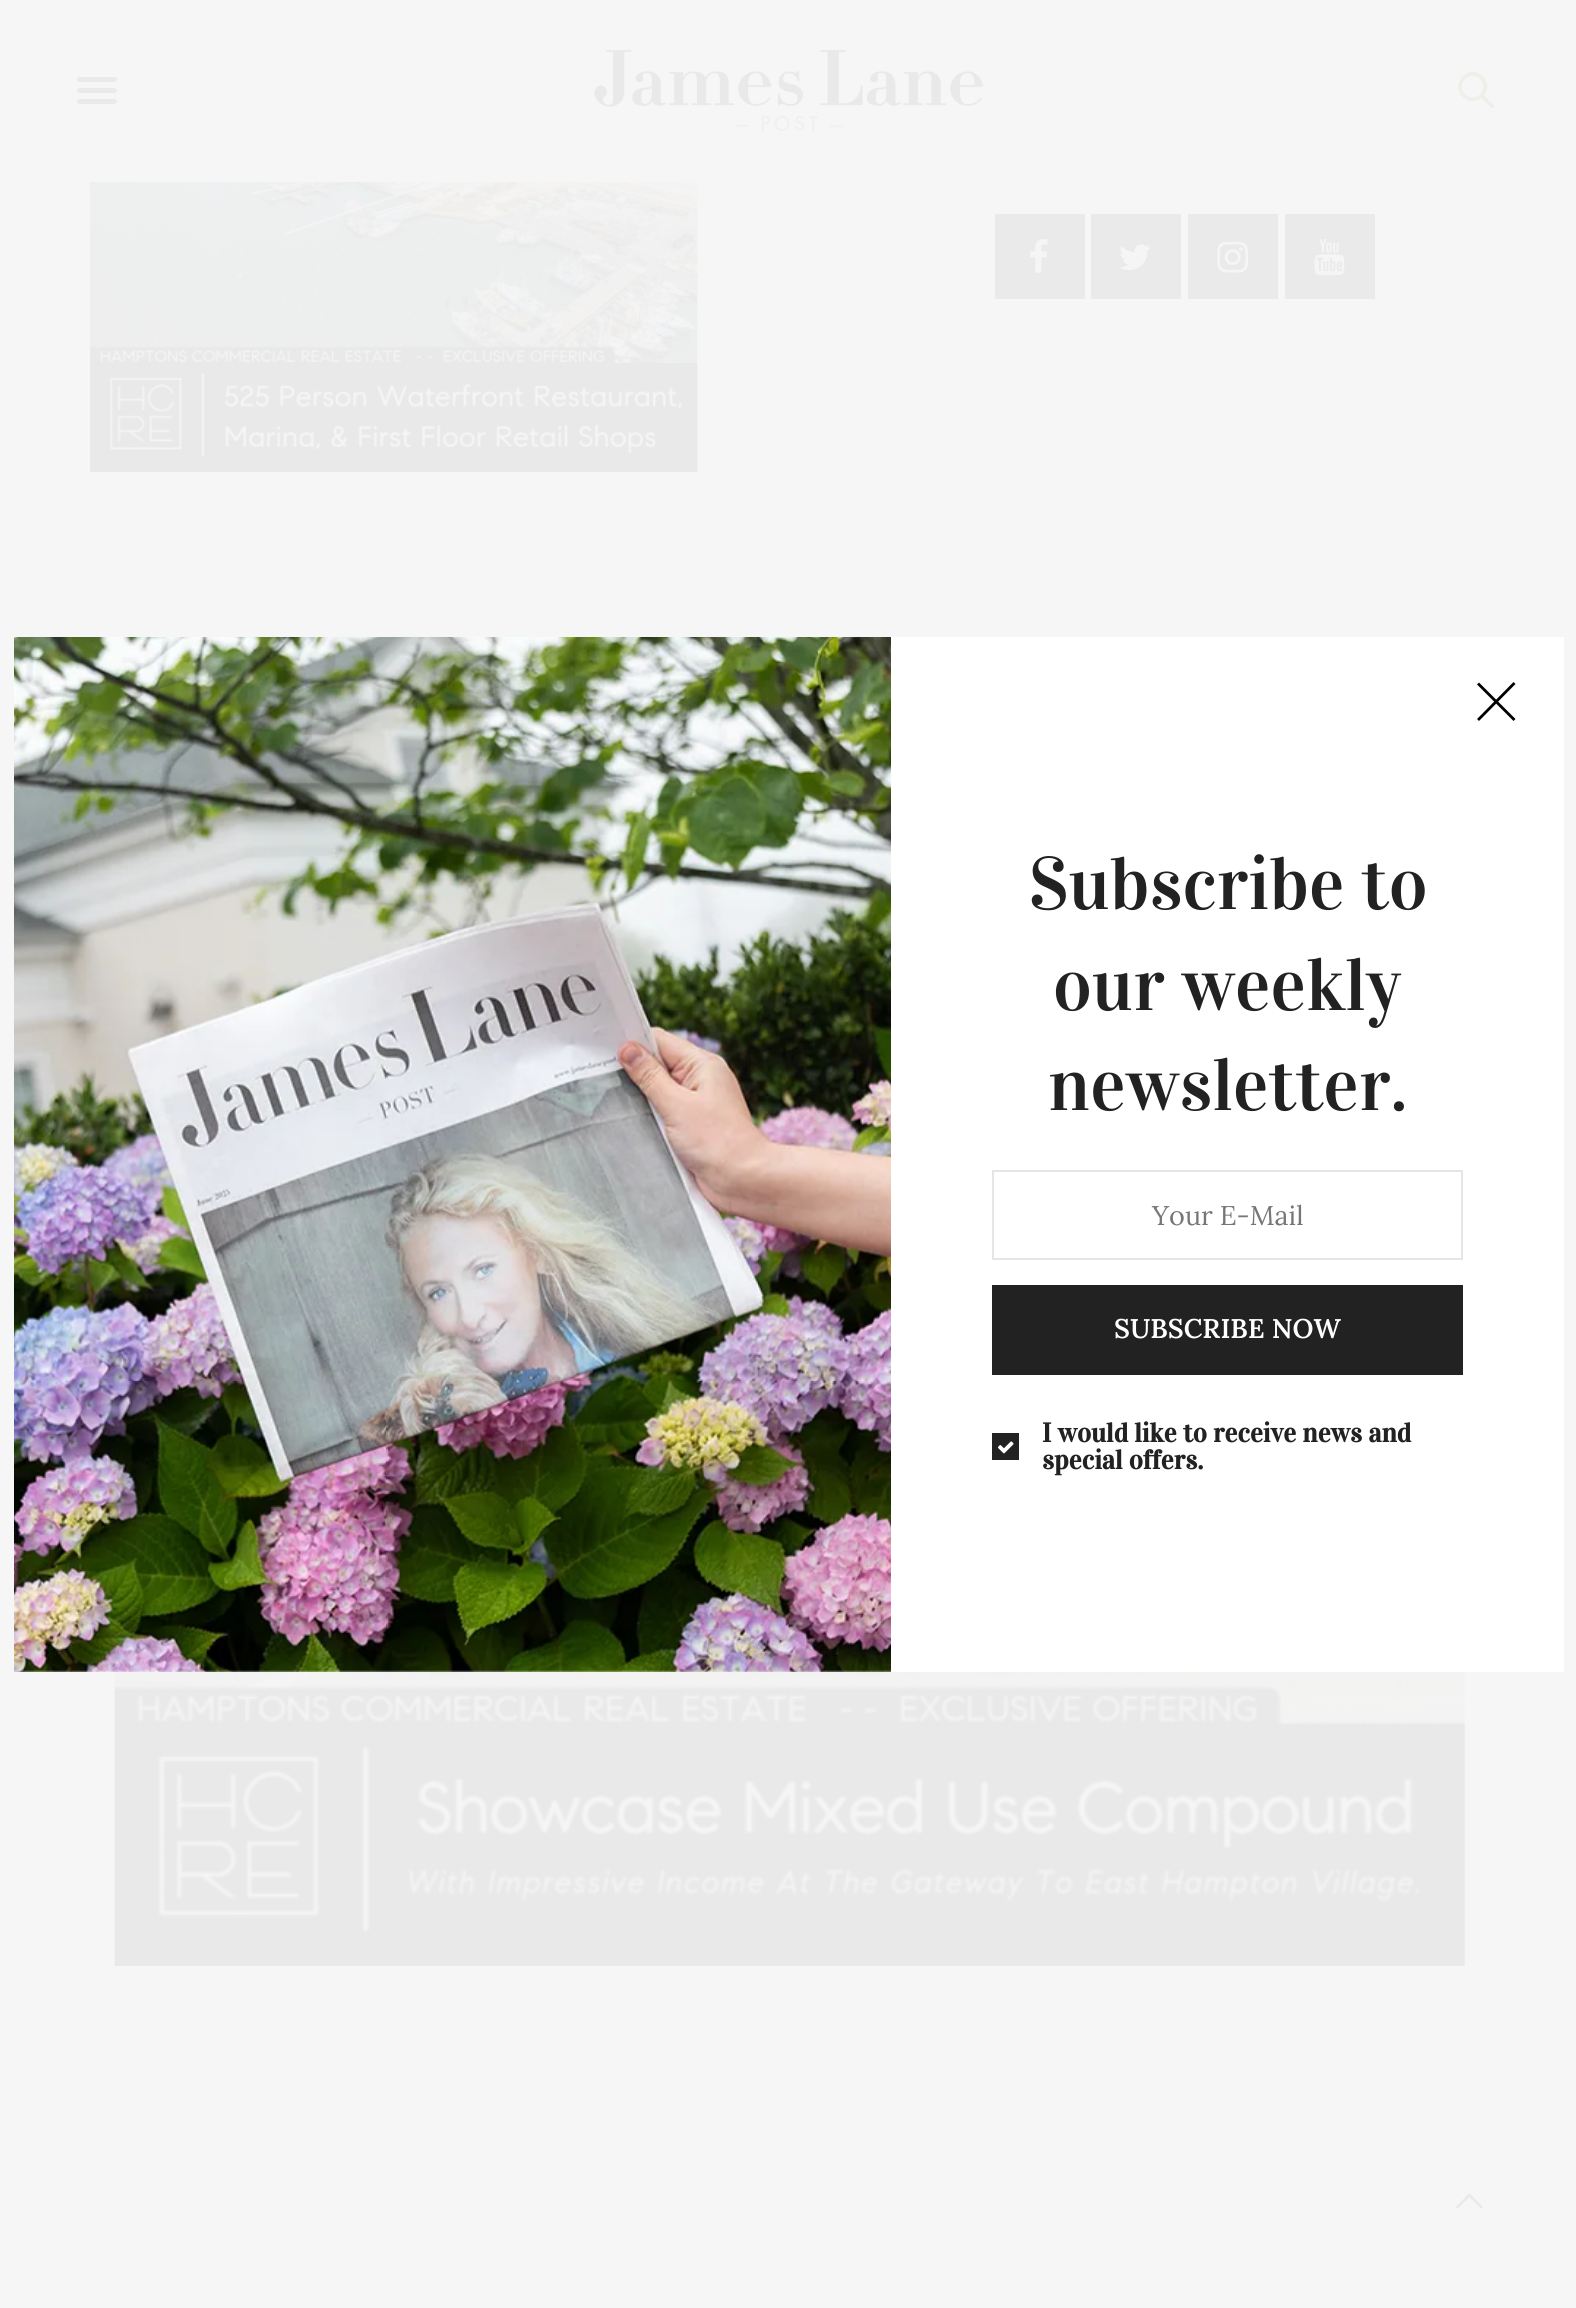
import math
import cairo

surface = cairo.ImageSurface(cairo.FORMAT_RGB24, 1576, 2308)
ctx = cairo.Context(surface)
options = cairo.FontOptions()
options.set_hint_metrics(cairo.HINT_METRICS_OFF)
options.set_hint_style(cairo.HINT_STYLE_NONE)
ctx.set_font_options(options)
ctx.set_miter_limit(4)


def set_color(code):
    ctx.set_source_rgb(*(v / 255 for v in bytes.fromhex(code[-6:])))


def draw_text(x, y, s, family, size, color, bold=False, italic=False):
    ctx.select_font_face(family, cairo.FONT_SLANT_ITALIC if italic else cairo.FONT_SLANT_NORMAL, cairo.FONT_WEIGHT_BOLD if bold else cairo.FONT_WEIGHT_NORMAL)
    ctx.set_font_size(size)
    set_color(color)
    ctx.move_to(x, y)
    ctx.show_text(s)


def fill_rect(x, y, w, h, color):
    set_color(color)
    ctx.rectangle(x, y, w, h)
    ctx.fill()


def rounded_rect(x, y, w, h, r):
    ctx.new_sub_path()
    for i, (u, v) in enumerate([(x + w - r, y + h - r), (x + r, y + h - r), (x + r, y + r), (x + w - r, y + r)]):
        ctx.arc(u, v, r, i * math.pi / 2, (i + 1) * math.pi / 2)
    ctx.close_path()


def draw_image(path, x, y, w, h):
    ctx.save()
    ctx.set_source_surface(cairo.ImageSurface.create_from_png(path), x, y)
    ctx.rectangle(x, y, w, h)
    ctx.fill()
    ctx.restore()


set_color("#f6f6f6")
ctx.paint()
set_color("#eaeaea")
rounded_rect(77, 77, 40, 5, 2.5)
ctx.fill()
rounded_rect(77, 88, 40, 5, 2.5)
ctx.fill()
rounded_rect(77, 99, 40, 5, 2.5)
ctx.fill()
draw_image("assets/img1.png", 594, 50, 389, 81)
draw_image("assets/img2.png", 1458, 72, 36, 36)
draw_image("assets/img3.png", 90, 182, 608, 291)
fill_rect(995, 214, 90, 85, "#eaeaea")
draw_image("assets/img4.png", 1030, 239, 18, 34)
fill_rect(1091, 214, 90, 85, "#eaeaea")
draw_image("assets/img5.png", 1119, 244, 32, 26)
fill_rect(1188, 214, 90, 85, "#eaeaea")
draw_image("assets/img6.png", 1217, 241, 32, 32)
fill_rect(1285, 214, 90, 85, "#eaeaea")
draw_image("assets/img7.png", 1314, 239, 31, 37)
draw_image("assets/img8.png", 114, 1672, 1351, 295)
fill_rect(14, 637, 1550, 1035, "#ffffff")
draw_image("assets/img9.png", 14, 637, 877, 1035)
ctx.new_path()
ctx.move_to(1478, 683.5)
ctx.line_to(1514.5, 720)
ctx.move_to(1478, 720)
ctx.line_to(1514.5, 683)
set_color("#000000")
ctx.set_line_width(2.8)
ctx.stroke()
draw_text(1028, 909, "Subscribe to", "Vidaloka", 74.25, "#222222")
draw_text(1053, 1010, "our weekly", "Vidaloka", 74.25, "#222222")
draw_text(1048, 1110, "newsletter.", "Vidaloka", 74.25, "#222222")
ctx.rectangle(993, 1171, 469, 88)
set_color("#e5e5e5")
ctx.set_line_width(2)
ctx.stroke()
draw_text(1152, 1225, "Your E-Mail", "Lora", 27, "#767676")
fill_rect(992, 1285, 471, 90, "#222222")
draw_text(1114, 1338, "SUBSCRIBE NOW", "Lora SemiBold", 27, "#ffffff")
fill_rect(992, 1433, 27, 27, "#222222")
draw_image("assets/img10.png", 998, 1441, 16, 13)
draw_text(1042, 1442, "I would like to receive news and", "Vidaloka", 27, "#222222", bold=True)
draw_text(1042, 1469, "special offers.", "Vidaloka", 27, "#222222", bold=True)
draw_image("assets/img11.png", 1456, 2193, 27, 16)
surface.write_to_png("output.png")
